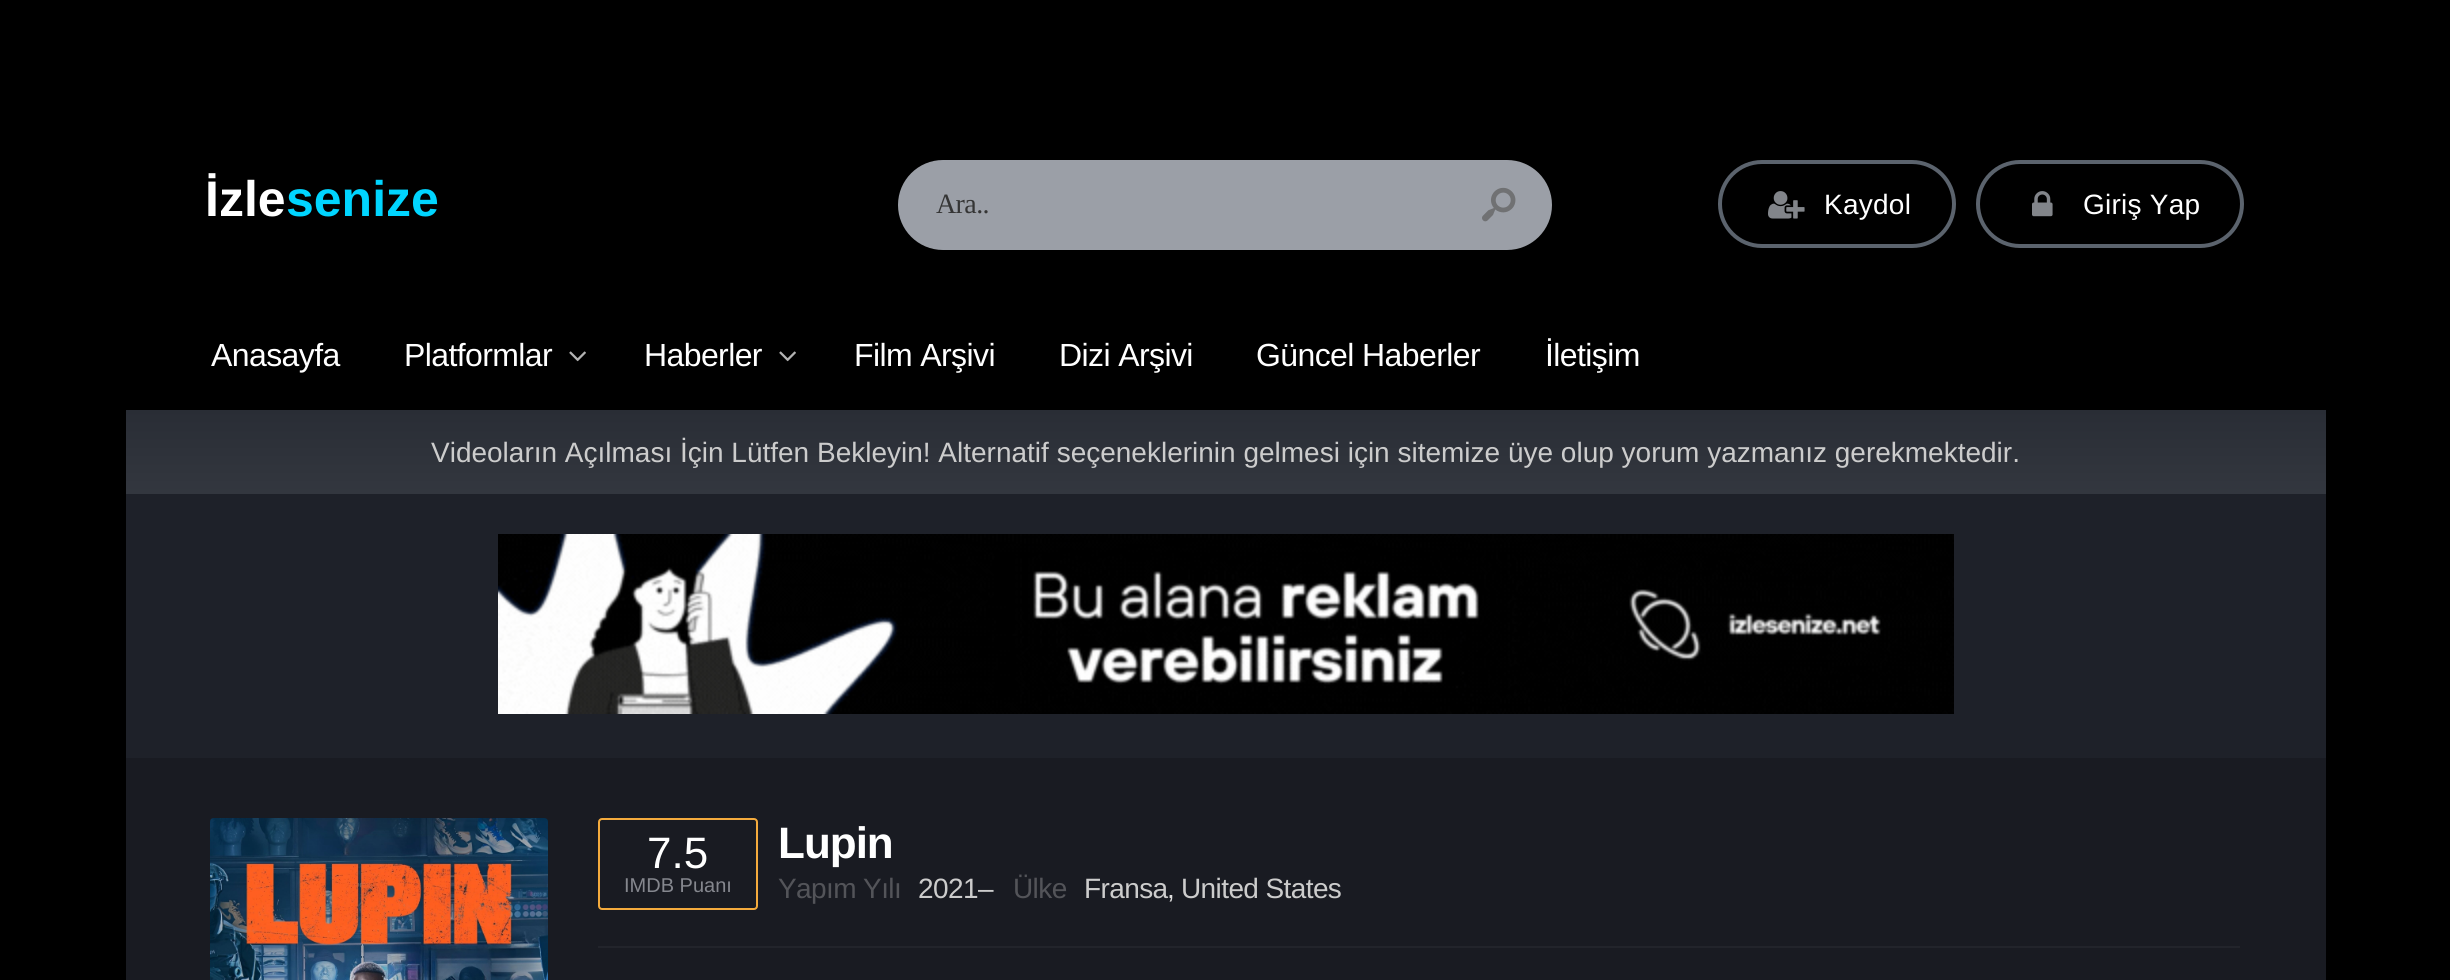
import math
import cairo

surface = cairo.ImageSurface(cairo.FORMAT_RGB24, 2450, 980)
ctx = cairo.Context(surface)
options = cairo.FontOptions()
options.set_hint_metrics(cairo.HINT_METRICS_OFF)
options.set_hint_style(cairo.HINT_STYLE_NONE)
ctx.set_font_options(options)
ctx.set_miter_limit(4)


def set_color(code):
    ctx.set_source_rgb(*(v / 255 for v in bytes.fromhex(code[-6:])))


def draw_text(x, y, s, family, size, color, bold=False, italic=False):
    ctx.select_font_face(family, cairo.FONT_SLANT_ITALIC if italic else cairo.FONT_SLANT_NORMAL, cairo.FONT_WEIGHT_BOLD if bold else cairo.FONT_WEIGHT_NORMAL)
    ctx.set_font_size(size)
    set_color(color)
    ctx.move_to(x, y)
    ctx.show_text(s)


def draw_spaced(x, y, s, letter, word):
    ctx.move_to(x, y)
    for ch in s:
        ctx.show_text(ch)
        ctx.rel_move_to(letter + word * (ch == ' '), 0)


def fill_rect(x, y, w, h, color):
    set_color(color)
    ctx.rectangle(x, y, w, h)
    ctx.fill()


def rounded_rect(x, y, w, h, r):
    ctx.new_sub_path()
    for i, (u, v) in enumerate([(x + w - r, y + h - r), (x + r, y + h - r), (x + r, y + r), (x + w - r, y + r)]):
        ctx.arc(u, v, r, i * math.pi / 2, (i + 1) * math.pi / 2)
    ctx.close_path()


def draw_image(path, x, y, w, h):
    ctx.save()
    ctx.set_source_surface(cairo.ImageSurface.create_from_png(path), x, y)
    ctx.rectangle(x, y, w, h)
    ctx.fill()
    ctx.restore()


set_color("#000000")
ctx.paint()
draw_text(205, 216, "İzle", "Liberation Sans", 50, "#ffffff", bold=True)
draw_text(286, 216, "senize", "Liberation Sans", 50, "#00d5ff", bold=True)
set_color("#9b9fa7")
rounded_rect(898, 160, 654, 90, 45)
ctx.fill()
ctx.select_font_face("Liberation Serif")
ctx.set_font_size(28)
set_color("#353535")
draw_spaced(936, 213, "Ara..", -0.6, 0)
draw_image("assets/img1.png", 1482, 187, 34, 35)
rounded_rect(1720, 162, 234, 84, 42)
set_color("#5b636d")
ctx.set_line_width(4)
ctx.stroke()
draw_image("assets/img2.png", 1768, 191, 37, 28)
ctx.select_font_face("Liberation Sans")
set_color("#ffffff")
draw_spaced(1824, 214, "Kaydol", 0.25, 0)
rounded_rect(1978, 162, 264, 84, 42)
set_color("#5b636d")
ctx.stroke()
draw_image("assets/img3.png", 2032, 191, 21, 26)
set_color("#ffffff")
draw_spaced(2083, 214, "Giriş Yap", 0.25, 0)
ctx.set_font_size(32)
draw_spaced(211, 366, "Anasayfa", -0.6, 0)
draw_spaced(404, 366, "Platformlar", -0.6, 0)
draw_image("assets/img4.png", 569, 351, 17, 11)
draw_spaced(644, 366, "Haberler", -0.6, 0)
draw_image("assets/img4.png", 779, 351, 17, 11)
draw_spaced(854, 366, "Film Arşivi", -0.6, 0)
draw_spaced(1059, 366, "Dizi Arşivi", -0.6, 0)
draw_spaced(1256, 366, "Güncel Haberler", -0.6, 0)
draw_spaced(1545, 366, "İletişim", -0.6, 0)
gradient = cairo.LinearGradient(1226, 410, 1226, 494)
gradient.add_color_stop_rgba(0, 0.161, 0.176, 0.208, 1)
gradient.add_color_stop_rgba(1, 0.2, 0.216, 0.247, 1)
ctx.set_source(gradient)
ctx.rectangle(126, 410, 2200, 84)
ctx.fill()
draw_text(431, 462, "Videoların Açılması İçin Lütfen Bekleyin! Alternatif seçeneklerinin gelmesi için sitemize üye olup yorum yazmanız gerekmektedir.", "Liberation Sans", 28, "#cccccc")
fill_rect(126, 494, 2200, 264, "#1e2129")
draw_image("assets/img5.png", 498, 534, 1456, 180)
fill_rect(126, 758, 2200, 222, "#191b22")
draw_image("assets/img6.png", 210, 818, 338, 162)
fill_rect(598, 946, 1642, 2, "#22242b")
rounded_rect(599, 819, 158, 90, 3)
set_color("#f4ab3d")
ctx.set_line_width(2)
ctx.stroke()
draw_text(647, 868, "7.5", "Liberation Sans", 44, "#ffffff")
draw_text(624, 892, "IMDB Puanı", "Liberation Sans", 20, "#85878e")
ctx.select_font_face("Liberation Sans", cairo.FONT_SLANT_NORMAL, cairo.FONT_WEIGHT_BOLD)
ctx.set_font_size(44)
set_color("#ffffff")
draw_spaced(778, 858, "Lupin", -1, 0)
ctx.select_font_face("Liberation Sans")
ctx.set_font_size(28)
set_color("#535459")
draw_spaced(778, 898, "Yapım Yılı", -0.6, 0)
set_color("#cccccc")
draw_spaced(918, 898, "2021–", -0.6, 0)
set_color("#535459")
draw_spaced(1013, 898, "Ülke", -0.6, 0)
set_color("#cccccc")
draw_spaced(1084, 898, "Fransa", -0.6, 0)
set_color("#dddddd")
draw_spaced(1167, 898, ",", -0.6, 0)
set_color("#cccccc")
draw_spaced(1181, 898, "United States", -0.6, 0)
surface.write_to_png("output.png")
